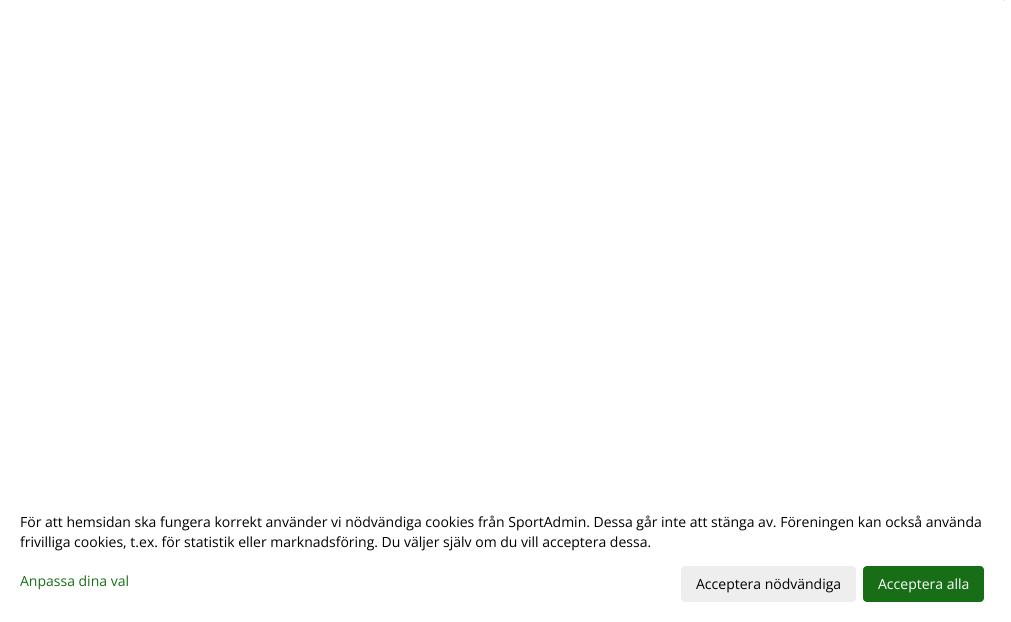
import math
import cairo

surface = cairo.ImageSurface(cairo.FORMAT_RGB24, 1011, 622)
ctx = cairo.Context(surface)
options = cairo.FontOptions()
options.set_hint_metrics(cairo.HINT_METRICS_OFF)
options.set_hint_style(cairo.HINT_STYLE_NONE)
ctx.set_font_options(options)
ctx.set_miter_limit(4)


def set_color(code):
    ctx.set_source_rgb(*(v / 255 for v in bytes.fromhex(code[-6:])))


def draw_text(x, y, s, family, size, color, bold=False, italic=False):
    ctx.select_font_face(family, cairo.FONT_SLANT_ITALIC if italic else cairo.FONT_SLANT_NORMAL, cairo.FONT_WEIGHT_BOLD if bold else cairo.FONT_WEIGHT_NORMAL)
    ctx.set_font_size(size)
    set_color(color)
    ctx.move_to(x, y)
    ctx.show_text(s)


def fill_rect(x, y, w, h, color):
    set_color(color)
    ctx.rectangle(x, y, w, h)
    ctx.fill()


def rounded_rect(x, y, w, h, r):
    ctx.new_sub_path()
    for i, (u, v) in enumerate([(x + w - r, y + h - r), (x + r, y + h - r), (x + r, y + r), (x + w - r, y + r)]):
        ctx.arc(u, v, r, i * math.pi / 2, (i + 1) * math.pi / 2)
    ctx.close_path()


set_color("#ffffff")
ctx.paint()
fill_rect(1003, 0, 2, 1, "#ededed")
draw_text(20, 527, "För att hemsidan ska fungera korrekt använder vi nödvändiga cookies från SportAdmin. Dessa går inte att stänga av. Föreningen kan också använda", "Open Sans", 14, "#000000")
draw_text(20, 547, "frivilliga cookies, t.ex. för statistik eller marknadsföring. Du väljer själv om du vill acceptera dessa.", "Open Sans", 14, "#000000")
draw_text(20, 586, "Anpassa dina val", "Open Sans", 14, "#186e16")
set_color("#eeeeee")
rounded_rect(681, 566, 175, 36, 4)
ctx.fill()
draw_text(696, 589, "Acceptera nödvändiga", "Open Sans", 14, "#000000")
set_color("#186e16")
rounded_rect(863, 566, 121, 36, 4)
ctx.fill()
draw_text(878, 589, "Acceptera alla", "Open Sans", 14, "#ffffff")
surface.write_to_png("output.png")
